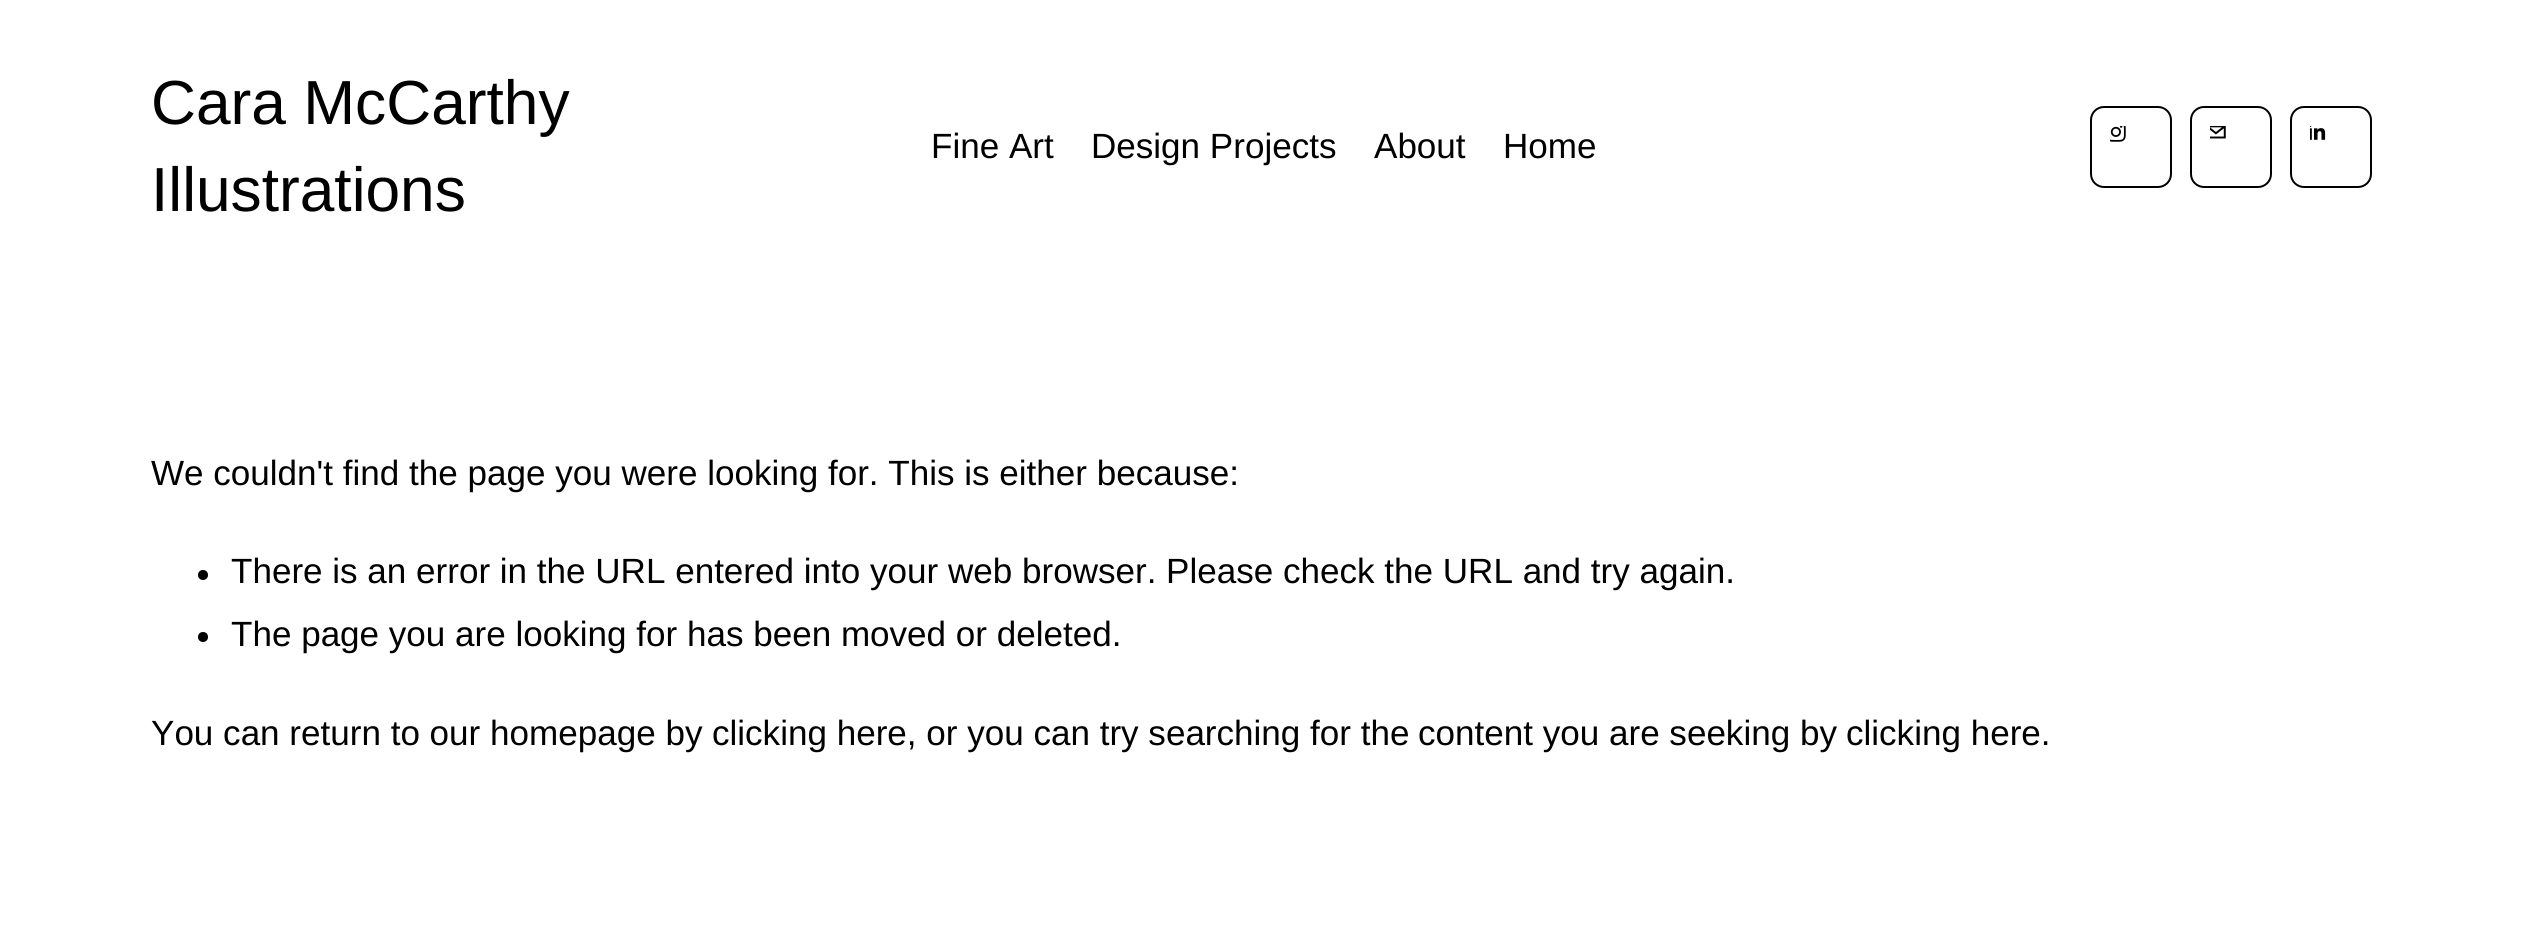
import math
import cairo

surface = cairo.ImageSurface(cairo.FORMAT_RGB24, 2523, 925)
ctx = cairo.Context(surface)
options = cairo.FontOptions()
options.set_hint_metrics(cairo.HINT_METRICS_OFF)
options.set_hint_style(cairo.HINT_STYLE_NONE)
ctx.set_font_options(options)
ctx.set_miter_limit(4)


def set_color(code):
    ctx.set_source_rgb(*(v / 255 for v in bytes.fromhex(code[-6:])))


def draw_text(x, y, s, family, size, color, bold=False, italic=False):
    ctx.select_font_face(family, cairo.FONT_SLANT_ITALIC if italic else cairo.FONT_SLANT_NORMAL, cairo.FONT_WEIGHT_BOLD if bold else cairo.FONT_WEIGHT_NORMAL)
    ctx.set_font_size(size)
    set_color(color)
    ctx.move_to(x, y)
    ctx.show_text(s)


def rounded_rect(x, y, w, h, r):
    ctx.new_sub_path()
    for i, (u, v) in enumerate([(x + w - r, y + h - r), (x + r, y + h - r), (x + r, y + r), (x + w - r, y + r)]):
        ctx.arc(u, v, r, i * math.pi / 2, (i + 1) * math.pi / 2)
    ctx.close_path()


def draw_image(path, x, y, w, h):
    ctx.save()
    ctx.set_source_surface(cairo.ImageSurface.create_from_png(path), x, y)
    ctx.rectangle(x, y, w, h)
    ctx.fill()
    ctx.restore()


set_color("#ffffff")
ctx.paint()
draw_text(151, 124, "Cara McCarthy", "Liberation Sans", 62.25, "#000000")
draw_text(151, 211, "Illustrations", "Liberation Sans", 62.25, "#000000")
draw_text(931, 158, "Fine Art", "Liberation Sans", 35.05, "#000000")
draw_text(1091, 158, "Design Projects", "Liberation Sans", 35.05, "#000000")
draw_text(1374, 158, "About", "Liberation Sans", 35.05, "#000000")
draw_text(1503, 158, "Home", "Liberation Sans", 35.05, "#000000")
rounded_rect(2091, 107, 80, 80, 13)
ctx.stroke()
draw_image("assets/img1.png", 2110, 126, 16, 16)
rounded_rect(2191, 107, 80, 80, 13)
ctx.stroke()
draw_image("assets/img2.png", 2210, 126, 16, 13)
rounded_rect(2291, 107, 80, 80, 13)
ctx.stroke()
draw_image("assets/img3.png", 2310, 126, 16, 14)
draw_text(151, 485, "We couldn't find the page you were looking for. This is either because:", "Liberation Sans", 35.05, "#000000")
ctx.new_path()
ctx.arc(203, 575, 5, 0, 2 * math.pi)
ctx.fill()
draw_text(231, 583, "There is an error in the URL entered into your web browser. Please check the URL and try again.", "Liberation Sans", 35.05, "#000000")
ctx.new_path()
ctx.arc(203, 637, 5, 0, 2 * math.pi)
ctx.fill()
draw_text(231, 646, "The page you are looking for has been moved or deleted.", "Liberation Sans", 35.05, "#000000")
draw_text(151, 745, "You can return to our homepage by", "Liberation Sans", 35.05, "#000000")
draw_text(712, 745, "clicking here, or you can try searching for the", "Liberation Sans", 35.05, "#000000")
draw_text(1418, 745, "content you are seeking by", "Liberation Sans", 35.05, "#000000")
draw_text(1846, 745, "clicking here.", "Liberation Sans", 35.05, "#000000")
surface.write_to_png("output.png")
